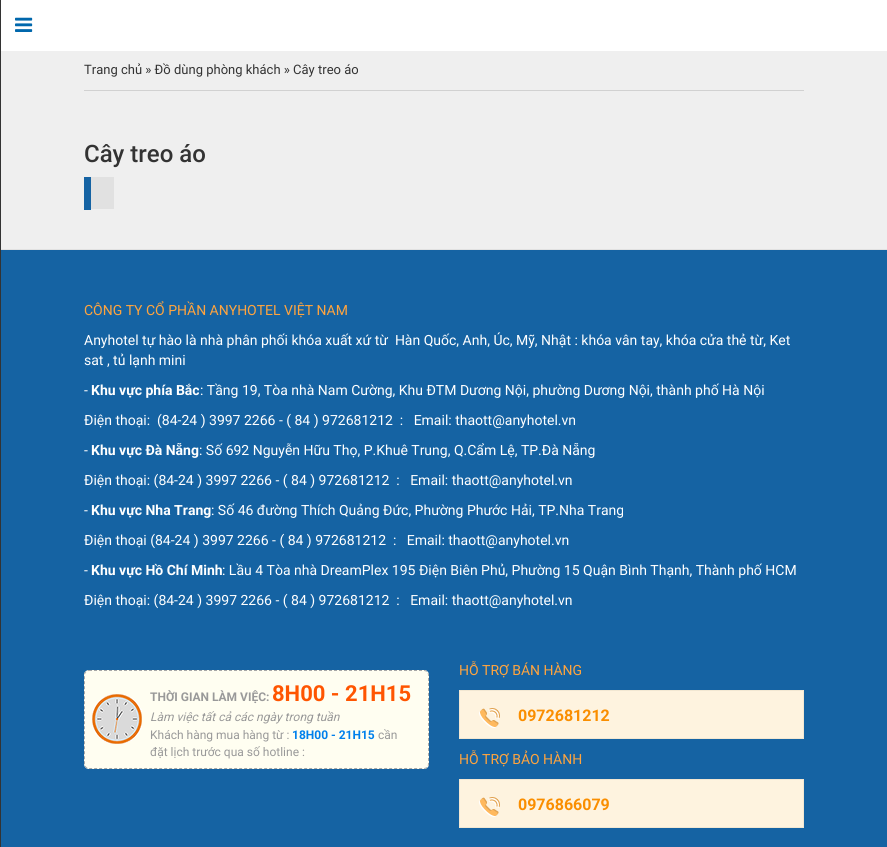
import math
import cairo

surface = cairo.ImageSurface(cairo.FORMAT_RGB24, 887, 847)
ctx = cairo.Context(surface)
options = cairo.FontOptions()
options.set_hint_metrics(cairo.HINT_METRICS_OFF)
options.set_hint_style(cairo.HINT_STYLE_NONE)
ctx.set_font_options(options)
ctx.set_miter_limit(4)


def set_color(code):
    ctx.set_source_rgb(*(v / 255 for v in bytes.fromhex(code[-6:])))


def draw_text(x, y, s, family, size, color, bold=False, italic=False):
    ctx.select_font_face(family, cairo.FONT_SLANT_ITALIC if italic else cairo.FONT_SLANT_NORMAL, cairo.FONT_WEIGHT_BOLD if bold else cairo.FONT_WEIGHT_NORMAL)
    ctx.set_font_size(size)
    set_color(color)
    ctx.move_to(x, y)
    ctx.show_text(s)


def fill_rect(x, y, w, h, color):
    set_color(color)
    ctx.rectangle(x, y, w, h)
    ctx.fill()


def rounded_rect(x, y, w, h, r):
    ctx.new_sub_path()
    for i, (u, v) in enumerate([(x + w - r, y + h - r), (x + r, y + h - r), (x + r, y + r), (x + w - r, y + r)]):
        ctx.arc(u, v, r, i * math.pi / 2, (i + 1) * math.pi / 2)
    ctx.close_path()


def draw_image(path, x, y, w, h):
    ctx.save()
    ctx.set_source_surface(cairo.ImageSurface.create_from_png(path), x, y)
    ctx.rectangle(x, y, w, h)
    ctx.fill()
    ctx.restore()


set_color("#ffffff")
ctx.paint()
fill_rect(0, 249, 887, 1, "#e1e1e1")
fill_rect(0, 0, 1, 847, "#333333")
draw_image("assets/img1.png", 15, 17, 18, 15)
fill_rect(1, 51, 886, 198, "#efefef")
fill_rect(84, 90, 720, 1, "#d1d1d1")
draw_text(84, 74, "Trang chủ » Đồ dùng phòng khách » Cây treo áo", "Roboto", 13, "#333333")
draw_text(84, 162, "Cây treo áo", "Roboto Medium", 24, "#333333")
fill_rect(84, 177, 7, 33, "#1563a3")
fill_rect(91, 177, 23, 32, "#e1e1e1")
fill_rect(1, 250, 886, 597, "#1563a3")
draw_text(84, 315, "CÔNG TY CỔ PHẦN ANYHOTEL VIỆT NAM", "Roboto", 14, "#ffa43e")
draw_text(84, 345, "Anyhotel tự hào là nhà phân phối khóa xuất xứ từ  Hàn Quốc, Anh, Úc, Mỹ, Nhật : khóa vân tay, khóa cửa thẻ từ, Ket", "Roboto", 14, "#ffffff")
draw_text(84, 365, "sat , tủ lạnh mini", "Roboto", 14, "#ffffff")
draw_text(84, 395, "-", "Roboto", 14, "#ffffff")
draw_text(91, 395, "Khu vực phía Bắc", "Roboto", 14, "#ffffff", bold=True)
draw_text(200, 395, ": Tầng 19, Tòa nhà Nam Cường, Khu ĐTM Dương Nội, phường Dương Nội, thành phố Hà Nội", "Roboto", 14, "#ffffff")
draw_text(84, 425, "Điện thoại:  (84-24 ) 3997 2266 - ( 84 ) 972681212  :   Email: thaott@anyhotel.vn", "Roboto", 14, "#ffffff")
draw_text(84, 455, "-", "Roboto", 14, "#ffffff")
draw_text(91, 455, "Khu vực Đà Nẵng", "Roboto", 14, "#ffffff", bold=True)
draw_text(199, 455, ": Số 692 Nguyễn Hữu Thọ, P.Khuê Trung, Q.Cẩm Lệ, TP.Đà Nẵng", "Roboto", 14, "#ffffff")
draw_text(84, 485, "Điện thoại: (84-24 ) 3997 2266 - ( 84 ) 972681212  :   Email: thaott@anyhotel.vn", "Roboto", 14, "#ffffff")
draw_text(84, 515, "-", "Roboto", 14, "#ffffff")
draw_text(91, 515, "Khu vực Nha Trang", "Roboto", 14, "#ffffff", bold=True)
draw_text(211, 515, ": Số 46 đường Thích Quảng Đức, Phường Phước Hải, TP.Nha Trang", "Roboto", 14, "#ffffff")
draw_text(84, 545, "Điện thoại (84-24 ) 3997 2266 - ( 84 ) 972681212  :   Email: thaott@anyhotel.vn", "Roboto", 14, "#ffffff")
draw_text(84, 575, "-", "Roboto", 14, "#ffffff")
draw_text(91, 575, "Khu vực Hồ Chí Minh", "Roboto", 14, "#ffffff", bold=True)
draw_text(222, 575, ": Lầu 4 Tòa nhà DreamPlex 195 Điện Biên Phủ, Phường 15 Quận Bình Thạnh, Thành phố HCM", "Roboto", 14, "#ffffff")
draw_text(84, 605, "Điện thoại: (84-24 ) 3997 2266 - ( 84 ) 972681212  :   Email: thaott@anyhotel.vn", "Roboto", 14, "#ffffff")
set_color("#fffef1")
rounded_rect(84, 670, 345, 99, 5)
ctx.fill()
draw_image("assets/img2.png", 92, 694, 50, 50)
ctx.new_path()
ctx.move_to(89, 670.5)
ctx.line_to(424, 670.5)
ctx.curve_to(426.5, 670.5, 428.5, 672.5, 428.5, 675)
ctx.line_to(428.5, 764)
ctx.curve_to(428.5, 766.5, 426.5, 768.5, 424, 768.5)
ctx.line_to(89, 768.5)
ctx.curve_to(86.5, 768.5, 84.5, 766.5, 84.5, 764)
ctx.line_to(84.5, 675)
ctx.curve_to(84.5, 672.5, 86.5, 670.5, 89, 670.5)
ctx.close_path()
set_color("#a7a7a7")
ctx.set_line_width(1)
ctx.set_dash([3, 2])
ctx.stroke()
draw_text(150, 701, "THỜI GIAN LÀM VIỆC:", "Roboto", 12, "#999999", bold=True)
draw_text(272, 701, "8H00 - 21H15", "Roboto", 22, "#ff5501", bold=True)
draw_text(150, 721, "Làm việc tất cả các ngày trong tuần", "Roboto", 12, "#999999", italic=True)
draw_text(150, 739, "Khách hàng mua hàng từ :", "Roboto", 12, "#999999")
draw_text(292, 739, "18H00 - 21H15", "Roboto", 12, "#0080ec", bold=True)
draw_text(378, 739, "cần", "Roboto", 12, "#999999")
draw_text(150, 756, "đặt lịch trước qua số hotline :", "Roboto", 12, "#999999")
draw_text(459, 675, "HỖ TRỢ BÁN HÀNG", "Roboto", 14, "#ffa43e")
fill_rect(460, 691, 343, 47, "#fef3df")
draw_image("assets/img3.png", 479, 708, 21, 20)
ctx.rectangle(459.5, 690.5, 344, 48)
set_color("#f2e7d2")
ctx.set_dash([])
ctx.stroke()
draw_text(518, 721, "0972681212", "Roboto", 16, "#fa8e00", bold=True)
draw_text(459, 764, "HỖ TRỢ BẢO HÀNH", "Roboto", 14, "#ffa43e")
fill_rect(460, 780, 343, 47, "#fef3df")
draw_image("assets/img3.png", 479, 797, 21, 20)
ctx.rectangle(459.5, 779.5, 344, 48)
set_color("#f2e7d2")
ctx.stroke()
draw_text(518, 810, "0976866079", "Roboto", 16, "#fa8e00", bold=True)
surface.write_to_png("output.png")
